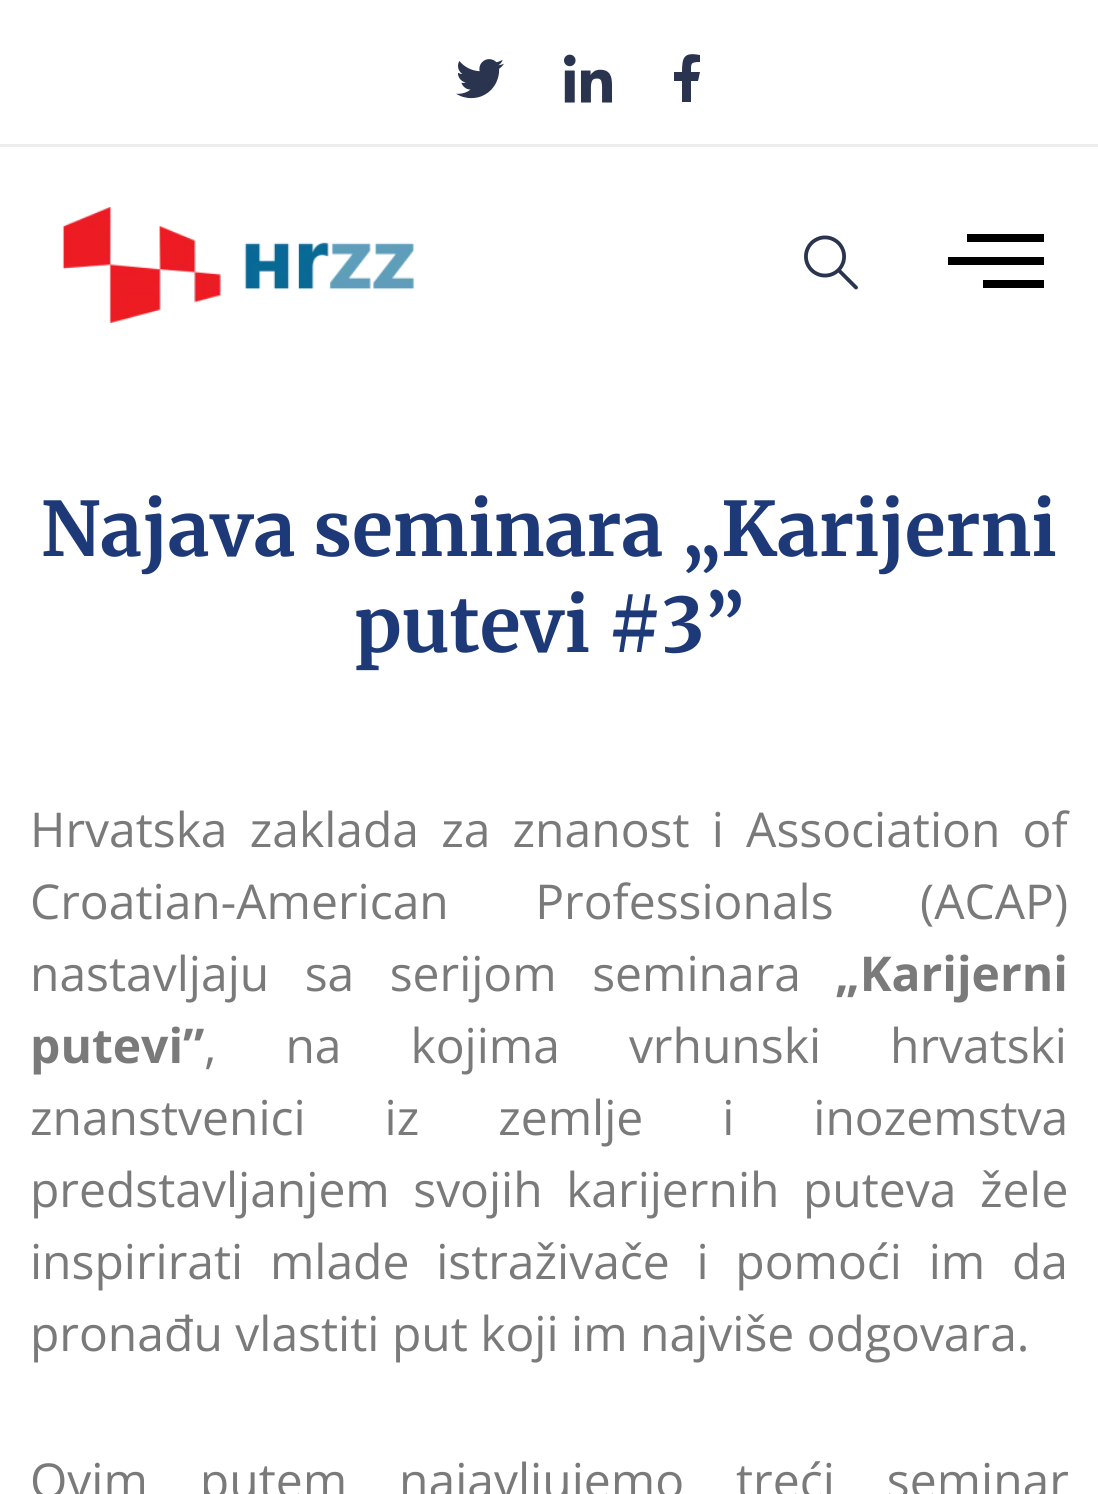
import math
import cairo

surface = cairo.ImageSurface(cairo.FORMAT_RGB24, 1098, 1494)
ctx = cairo.Context(surface)
options = cairo.FontOptions()
options.set_hint_metrics(cairo.HINT_METRICS_OFF)
options.set_hint_style(cairo.HINT_STYLE_NONE)
ctx.set_font_options(options)
ctx.set_miter_limit(4)


def set_color(code):
    ctx.set_source_rgb(*(v / 255 for v in bytes.fromhex(code[-6:])))


def draw_text(x, y, s, family, size, color, bold=False, italic=False):
    ctx.select_font_face(family, cairo.FONT_SLANT_ITALIC if italic else cairo.FONT_SLANT_NORMAL, cairo.FONT_WEIGHT_BOLD if bold else cairo.FONT_WEIGHT_NORMAL)
    ctx.set_font_size(size)
    set_color(color)
    ctx.move_to(x, y)
    ctx.show_text(s)


def draw_spaced(x, y, s, letter, word):
    ctx.move_to(x, y)
    for ch in s:
        ctx.show_text(ch)
        ctx.rel_move_to(letter + word * (ch == ' '), 0)


def fill_rect(x, y, w, h, color):
    set_color(color)
    ctx.rectangle(x, y, w, h)
    ctx.fill()


def draw_image(path, x, y, w, h):
    ctx.save()
    ctx.set_source_surface(cairo.ImageSurface.create_from_png(path), x, y)
    ctx.rectangle(x, y, w, h)
    ctx.fill()
    ctx.restore()


set_color("#ffffff")
ctx.paint()
fill_rect(0, 144, 1098, 3, "#ededed")
draw_image("assets/img1.png", 456, 59, 48, 40)
draw_image("assets/img2.png", 564, 54, 48, 49)
set_color("#2a344f")
ctx.new_path()
ctx.move_to(698, 81)
ctx.line_to(700, 72)
ctx.line_to(691, 72)
ctx.curve_to(691, 64, 690, 62, 700, 62)
ctx.line_to(700, 55)
ctx.curve_to(684, 52, 682, 57, 682, 72)
ctx.line_to(674, 72)
ctx.line_to(674, 81)
ctx.line_to(682, 81)
ctx.line_to(682, 102)
ctx.line_to(691, 102)
ctx.line_to(691, 81)
ctx.close_path()
ctx.fill()
draw_image("assets/img3.png", 62, 207, 353, 117)
draw_image("assets/img4.png", 804, 235, 54, 55)
set_color("#000000")
ctx.new_path()
ctx.move_to(948, 265)
ctx.line_to(1044, 265)
ctx.line_to(1044, 257)
ctx.line_to(948, 257)
ctx.close_path()
ctx.move_to(983, 288)
ctx.line_to(1044, 288)
ctx.line_to(1044, 280)
ctx.line_to(983, 280)
ctx.close_path()
ctx.move_to(967, 234)
ctx.line_to(967, 242)
ctx.line_to(1044, 242)
ctx.line_to(1044, 234)
ctx.close_path()
ctx.fill()
draw_text(41, 556, "Najava seminara „Karijerni", "Merriweather", 75, "#1d3977", bold=True)
draw_text(354, 652, "putevi #3”", "Merriweather", 75, "#1d3977", bold=True)
ctx.select_font_face("Open Sans")
ctx.set_font_size(48)
set_color("#7a7a7a")
draw_spaced(30, 847, "Hrvatska zaklada za znanost i Association of", 0, 9.75)
draw_spaced(30, 919, "Croatian-American Professionals (ACAP)", 0, 74)
draw_spaced(30, 991, "nastavljaju sa serijom seminara", 0, 23)
draw_text(835, 991, "„Karijerni", "Open Sans", 48, "#7a7a7a", bold=True)
draw_text(30, 1063, "putevi”", "Open Sans", 48, "#7a7a7a", bold=True)
ctx.select_font_face("Open Sans")
draw_spaced(204, 1063, ", na kojima vrhunski hrvatski", 0, 56.5)
draw_spaced(30, 1135, "znanstvenici iz zemlje i inozemstva", 0, 66.5)
draw_spaced(30, 1207, "predstavljanjem svojih karijernih puteva žele", 0, 11)
draw_spaced(30, 1279, "inspirirati mlade istraživače i pomoći im da", 0, 14.25)
draw_text(30, 1351, "pronađu vlastiti put koji im najviše odgovara.", "Open Sans", 48, "#7a7a7a")
draw_spaced(30, 1498, "Ovim putem najavljujemo treći seminar", 0, 39.5)
surface.write_to_png("output.png")
